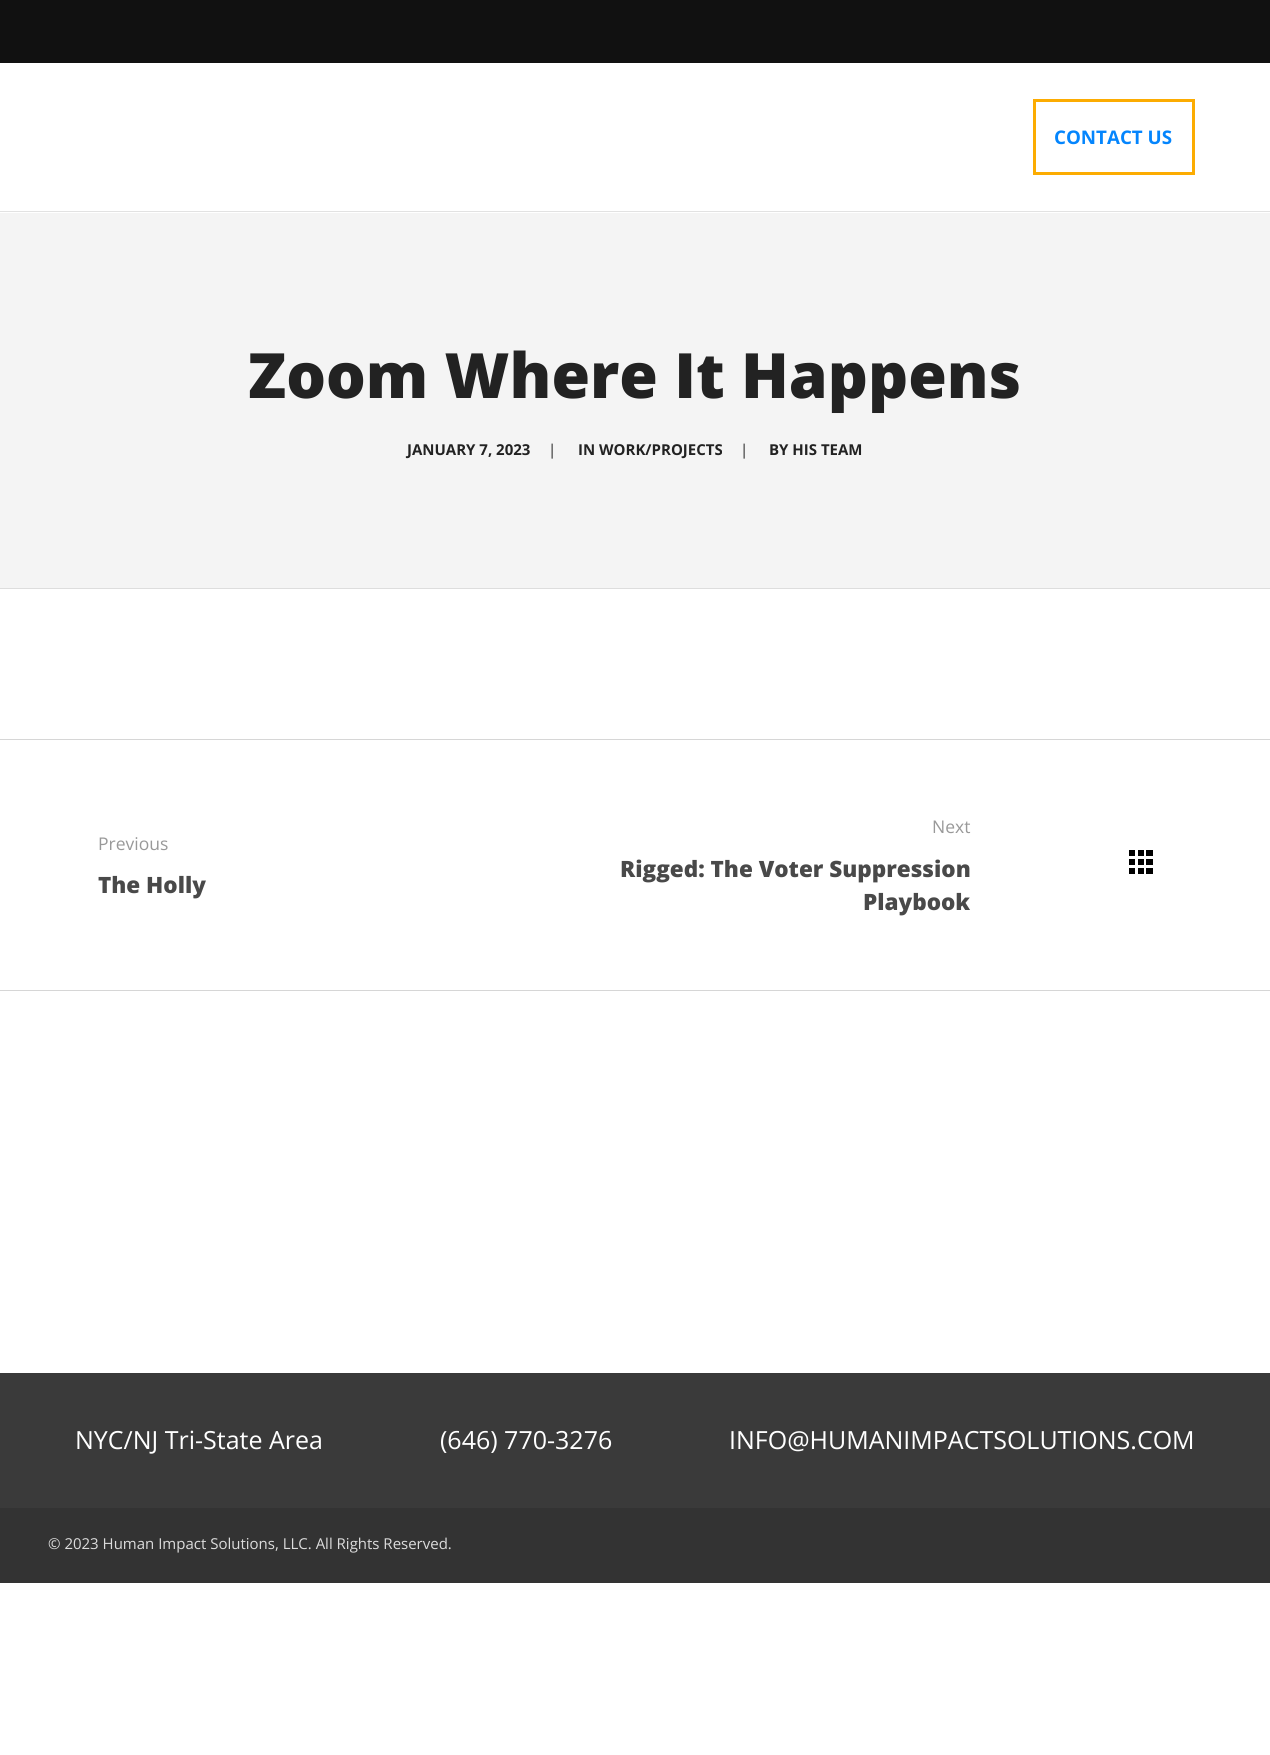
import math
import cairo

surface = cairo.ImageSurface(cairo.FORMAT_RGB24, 1270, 1755)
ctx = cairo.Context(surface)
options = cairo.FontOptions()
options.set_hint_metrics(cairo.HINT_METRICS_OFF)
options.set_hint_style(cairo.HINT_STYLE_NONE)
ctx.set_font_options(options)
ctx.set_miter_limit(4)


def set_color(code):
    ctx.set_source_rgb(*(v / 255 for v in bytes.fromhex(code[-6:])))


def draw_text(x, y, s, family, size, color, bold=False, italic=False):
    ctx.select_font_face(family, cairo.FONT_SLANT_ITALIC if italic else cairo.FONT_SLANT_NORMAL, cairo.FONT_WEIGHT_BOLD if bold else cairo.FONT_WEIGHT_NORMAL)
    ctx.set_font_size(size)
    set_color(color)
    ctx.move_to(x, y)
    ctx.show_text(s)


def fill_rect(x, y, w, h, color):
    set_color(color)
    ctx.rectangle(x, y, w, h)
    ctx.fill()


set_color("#ffffff")
ctx.paint()
fill_rect(0, 0, 1270, 63, "#111111")
fill_rect(0, 211, 1270, 1, "#e2e2e2")
ctx.rectangle(1034.5, 100.5, 159, 73)
set_color("#fcac01")
ctx.set_line_width(3)
ctx.stroke()
draw_text(1054, 144, "CONTACT US", "Open Sans", 18.75, "#0485fd", bold=True)
fill_rect(0, 213, 1270, 375, "#f4f4f4")
fill_rect(0, 588, 1270, 1, "#dddddd")
draw_text(248, 398, "Zoom Where It Happens", "Open Sans ExtraBold", 62.5, "#222222")
draw_text(407, 455, "JANUARY 7, 2023", "Open Sans", 15, "#222222", bold=True)
draw_text(548, 455, "|", "Open Sans", 15, "#222222")
draw_text(578, 455, "IN WORK/PROJECTS", "Open Sans", 15, "#222222", bold=True)
draw_text(740, 455, "|", "Open Sans", 15, "#222222")
draw_text(769, 455, "BY HIS TEAM", "Open Sans", 15, "#222222", bold=True)
fill_rect(0, 739, 1270, 1, "#d6d6d6")
fill_rect(0, 990, 1270, 1, "#d6d6d6")
draw_text(98, 850, "Previous", "Open Sans", 17.5, "#999999")
draw_text(98, 893, "The Holly", "Open Sans ExtraBold", 22.5, "#494949")
draw_text(932, 833, "Next", "Open Sans", 17.5, "#999999")
draw_text(620, 877, "Rigged: The Voter Suppression", "Open Sans ExtraBold", 22.5, "#494949")
draw_text(863, 910, "Playbook", "Open Sans ExtraBold", 22.5, "#494949")
fill_rect(1138, 850, 6, 6, "#000000")
fill_rect(1129, 850, 6, 6, "#000000")
fill_rect(1146, 850, 7, 6, "#000000")
fill_rect(1138, 859, 6, 6, "#000000")
fill_rect(1129, 859, 6, 6, "#000000")
fill_rect(1146, 859, 7, 6, "#000000")
fill_rect(1138, 868, 6, 6, "#000000")
fill_rect(1129, 868, 6, 6, "#000000")
fill_rect(1146, 868, 7, 6, "#000000")
fill_rect(0, 1373, 1270, 135, "#3a3a3a")
draw_text(75, 1449, "NYC/NJ Tri-State Area", "Open Sans", 25, "#ffffff")
draw_text(440, 1449, "(646) 770-3276", "Open Sans", 25, "#ffffff")
draw_text(729, 1449, "INFO@HUMANIMPACTSOLUTIONS.COM", "Open Sans", 25, "#ffffff")
fill_rect(0, 1508, 1270, 75, "#333333")
draw_text(48, 1549, "© 2023 Human Impact Solutions, LLC. All Rights Reserved.", "Open Sans", 15, "#dcdcdc")
surface.write_to_png("output.png")
